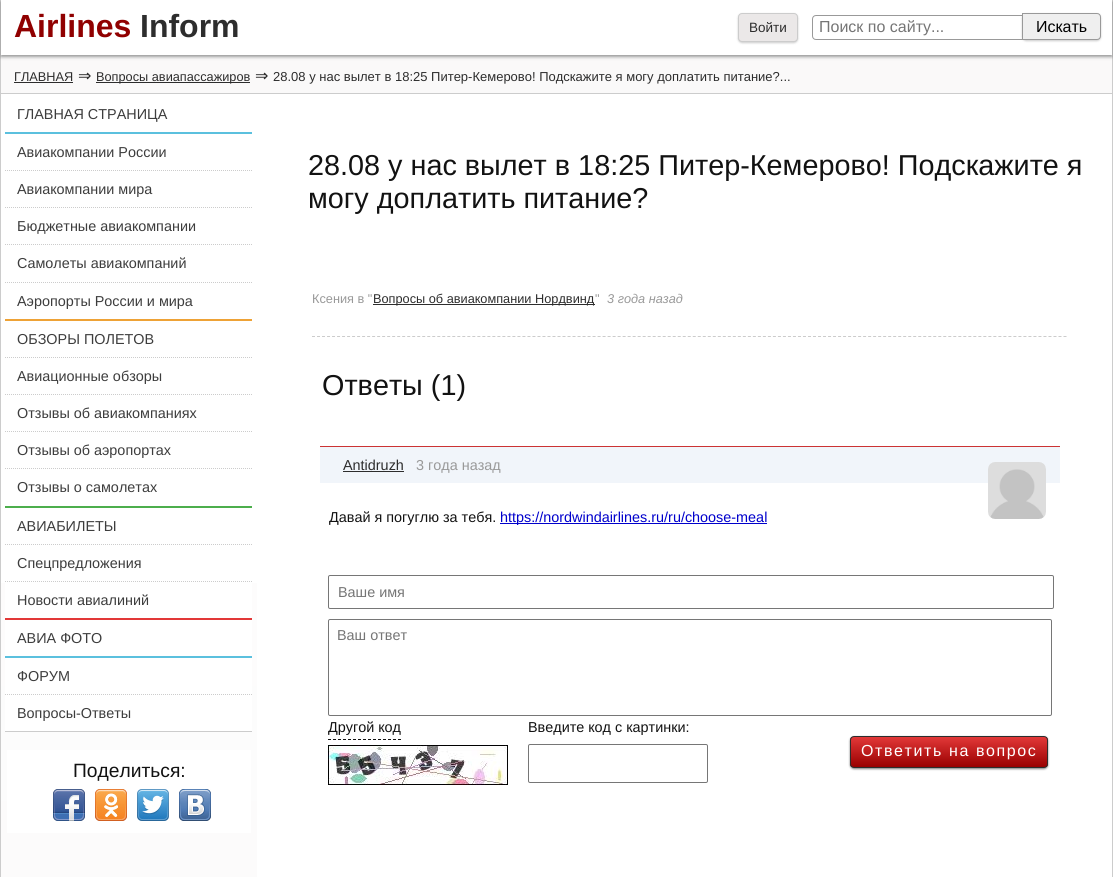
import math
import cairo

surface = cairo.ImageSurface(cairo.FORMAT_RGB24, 1113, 877)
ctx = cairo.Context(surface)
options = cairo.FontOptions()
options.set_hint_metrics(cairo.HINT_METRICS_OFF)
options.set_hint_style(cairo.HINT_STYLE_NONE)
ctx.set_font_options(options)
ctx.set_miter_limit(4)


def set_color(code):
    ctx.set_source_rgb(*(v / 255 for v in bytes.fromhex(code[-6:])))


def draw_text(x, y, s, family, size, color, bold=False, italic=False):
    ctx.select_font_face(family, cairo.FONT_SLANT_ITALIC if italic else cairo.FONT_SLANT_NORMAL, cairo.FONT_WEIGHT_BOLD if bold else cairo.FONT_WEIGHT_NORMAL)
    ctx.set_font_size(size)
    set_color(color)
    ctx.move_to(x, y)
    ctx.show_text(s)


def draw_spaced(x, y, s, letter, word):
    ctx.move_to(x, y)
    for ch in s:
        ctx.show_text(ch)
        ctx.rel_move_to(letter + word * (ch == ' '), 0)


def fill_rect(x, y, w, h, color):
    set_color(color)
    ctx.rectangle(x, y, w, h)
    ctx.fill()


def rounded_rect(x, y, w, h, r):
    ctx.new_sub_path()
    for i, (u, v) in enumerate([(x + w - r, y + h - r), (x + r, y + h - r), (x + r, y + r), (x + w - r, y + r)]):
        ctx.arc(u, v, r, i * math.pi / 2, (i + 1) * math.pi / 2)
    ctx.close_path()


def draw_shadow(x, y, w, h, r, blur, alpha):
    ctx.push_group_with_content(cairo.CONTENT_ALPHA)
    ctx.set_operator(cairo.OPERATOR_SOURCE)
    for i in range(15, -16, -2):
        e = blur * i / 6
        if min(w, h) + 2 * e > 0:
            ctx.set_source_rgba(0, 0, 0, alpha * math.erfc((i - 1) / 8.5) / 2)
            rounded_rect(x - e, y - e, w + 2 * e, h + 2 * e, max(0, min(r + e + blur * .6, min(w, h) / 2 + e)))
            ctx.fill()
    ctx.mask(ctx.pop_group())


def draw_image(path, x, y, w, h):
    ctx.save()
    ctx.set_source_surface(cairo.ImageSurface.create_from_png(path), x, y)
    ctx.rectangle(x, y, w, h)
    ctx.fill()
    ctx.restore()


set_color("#ffffff")
ctx.paint()
gradient = cairo.LinearGradient(1, 0, 1, 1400)
gradient.add_color_stop_rgba(0, 1, 1, 1, 1)
gradient.add_color_stop_rgba(1, 0.98, 0.976, 0.976, 1)
ctx.set_source(gradient)
ctx.rectangle(1, 583, 1111, 294)
ctx.fill()
fill_rect(1112, 0, 1, 877, "#cccccc")
fill_rect(0, 0, 1, 877, "#cccccc")
fill_rect(1, 58, 1111, 35, "#faf9f9")
ctx.save()
ctx.set_fill_rule(cairo.FILL_RULE_EVEN_ODD)
ctx.new_path()
ctx.move_to(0, 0)
ctx.line_to(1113, 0)
ctx.line_to(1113, 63)
ctx.line_to(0, 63)
ctx.close_path()
ctx.move_to(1, 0)
ctx.line_to(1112, 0)
ctx.line_to(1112, 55)
ctx.line_to(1, 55)
ctx.close_path()
ctx.clip()
set_color("#000000")
draw_shadow(1, 2, 1111, 55, 0, 1.5, 0.4)
ctx.restore()
draw_text(14, 37, "Airlines", "Liberation Sans", 32, "#900000", bold=True)
draw_text(140, 37, "Inform", "Liberation Sans", 32, "#2d2d2d", bold=True)
set_color("#000000")
draw_shadow(738, 14, 60, 29, 4, 1, 0.2)
set_color("#ebe8e8")
rounded_rect(738.5, 13.5, 59, 28, 3.5)
ctx.fill_preserve()
set_color("#cccccc")
ctx.set_line_width(1)
ctx.stroke()
draw_text(749, 32, "Войти", "Liberation Sans", 13.5, "#2d2d2d")
ctx.new_path()
ctx.move_to(816, 15.5)
ctx.line_to(1033.5, 15.5)
ctx.line_to(1033.5, 39.5)
ctx.line_to(816, 39.5)
ctx.curve_to(814, 39.5, 812.5, 38, 812.5, 36)
ctx.line_to(812.5, 19)
ctx.curve_to(812.5, 17, 814, 15.5, 816, 15.5)
ctx.close_path()
set_color("#999999")
ctx.stroke()
draw_text(819, 32, "Поиск по сайту...", "Liberation Sans", 16, "#757575")
set_color("#000000")
draw_shadow(1022, 14, 79, 27, 4, 1, 0.2)
set_color("#efefef")
ctx.new_path()
ctx.move_to(1022.5, 13.5)
ctx.line_to(1097, 13.5)
ctx.curve_to(1099, 13.5, 1100.5, 15, 1100.5, 17)
ctx.line_to(1100.5, 36)
ctx.curve_to(1100.5, 38, 1099, 39.5, 1097, 39.5)
ctx.line_to(1022.5, 39.5)
ctx.close_path()
ctx.fill_preserve()
set_color("#999999")
ctx.stroke()
draw_text(1036, 32, "Искать", "Liberation Sans", 16, "#000000")
fill_rect(1, 93, 1111, 1, "#cccccc")
draw_text(14, 81, "ГЛАВНАЯ", "Liberation Sans", 12.75, "#2d2d2d")
fill_rect(14, 82, 59, 1, "#2d2d2d")
draw_text(78, 81, "⇒", "DejaVu Sans", 16, "#2d2d2d")
fill_rect(96, 82, 154, 1, "#2d2d2d")
draw_text(96, 81, "Вопросы авиапассажиров", "Liberation Sans", 12.75, "#2d2d2d")
draw_text(255, 81, "⇒", "DejaVu Sans", 16, "#2d2d2d")
draw_text(273, 81, "28.08 у нас вылет в 18:25 Питер-Кемерово! Подскажите я могу доплатить питание?...", "Liberation Sans", 13, "#2d2d2d")
fill_rect(5, 583, 247, 148, "#ffffff")
fill_rect(5, 731, 247, 1, "#cccccc")
draw_text(17, 119, "ГЛАВНАЯ СТРАНИЦА", "Liberation Sans", 14.4, "#3d3d3d")
fill_rect(5, 132, 247, 2, "#5bc0de")
ctx.new_path()
ctx.move_to(5, 170.5)
ctx.line_to(252, 170.5)
set_color("#cccccc")
ctx.set_dash([1, 1])
ctx.stroke()
draw_text(17, 157, "Авиакомпании России", "Liberation Sans", 14.4, "#3d3d3d")
ctx.new_path()
ctx.move_to(5, 207.5)
ctx.line_to(252, 207.5)
set_color("#cccccc")
ctx.stroke()
draw_text(17, 194, "Авиакомпании мира", "Liberation Sans", 14.4, "#3d3d3d")
ctx.new_path()
ctx.move_to(5, 244.5)
ctx.line_to(252, 244.5)
set_color("#cccccc")
ctx.stroke()
draw_text(17, 231, "Бюджетные авиакомпании", "Liberation Sans", 14.4, "#3d3d3d")
ctx.new_path()
ctx.move_to(5, 282.5)
ctx.line_to(252, 282.5)
set_color("#cccccc")
ctx.stroke()
draw_text(17, 268, "Самолеты авиакомпаний", "Liberation Sans", 14.4, "#3d3d3d")
draw_text(17, 306, "Аэропорты России и мира", "Liberation Sans", 14.4, "#3d3d3d")
fill_rect(5, 319, 247, 2, "#eea236")
ctx.new_path()
ctx.move_to(5, 357.5)
ctx.line_to(252, 357.5)
set_color("#cccccc")
ctx.stroke()
draw_text(17, 344, "ОБЗОРЫ ПОЛЕТОВ", "Liberation Sans", 14.4, "#3d3d3d")
ctx.new_path()
ctx.move_to(5, 394.5)
ctx.line_to(252, 394.5)
set_color("#cccccc")
ctx.stroke()
draw_text(17, 381, "Авиационные обзоры", "Liberation Sans", 14.4, "#3d3d3d")
ctx.new_path()
ctx.move_to(5, 431.5)
ctx.line_to(252, 431.5)
set_color("#cccccc")
ctx.stroke()
draw_text(17, 418, "Отзывы об авиакомпаниях", "Liberation Sans", 14.4, "#3d3d3d")
ctx.new_path()
ctx.move_to(5, 468.5)
ctx.line_to(252, 468.5)
set_color("#cccccc")
ctx.stroke()
draw_text(17, 455, "Отзывы об аэропортах", "Liberation Sans", 14.4, "#3d3d3d")
draw_text(17, 492, "Отзывы о самолетах", "Liberation Sans", 14.4, "#3d3d3d")
fill_rect(5, 506, 247, 2, "#4cae4c")
ctx.new_path()
ctx.move_to(5, 544.5)
ctx.line_to(252, 544.5)
set_color("#cccccc")
ctx.stroke()
draw_text(17, 531, "АВИАБИЛЕТЫ", "Liberation Sans", 14.4, "#3d3d3d")
ctx.new_path()
ctx.move_to(5, 581.5)
ctx.line_to(252, 581.5)
set_color("#cccccc")
ctx.stroke()
draw_text(17, 568, "Спецпредложения", "Liberation Sans", 14.4, "#3d3d3d")
draw_text(17, 605, "Новости авиалиний", "Liberation Sans", 14.4, "#3d3d3d")
fill_rect(5, 618, 247, 2, "#e23838")
draw_text(17, 643, "АВИА ФОТО", "Liberation Sans", 14.4, "#3d3d3d")
fill_rect(5, 656, 247, 2, "#5bc0de")
ctx.new_path()
ctx.move_to(5, 694.5)
ctx.line_to(252, 694.5)
set_color("#cccccc")
ctx.stroke()
draw_text(17, 681, "ФОРУМ", "Liberation Sans", 14.4, "#3d3d3d")
draw_text(17, 718, "Вопросы-Ответы", "Liberation Sans", 14.4, "#3d3d3d")
fill_rect(7, 750, 244, 83, "#ffffff")
draw_text(73, 777, "Поделиться:", "Liberation Sans", 19.25, "#121212")
draw_image("assets/img1.png", 53, 789, 32, 32)
draw_image("assets/img2.png", 95, 789, 32, 32)
draw_image("assets/img3.png", 137, 789, 32, 32)
draw_image("assets/img4.png", 179, 789, 32, 32)
fill_rect(257, 583, 855, 294, "#ffffff")
draw_text(308, 175, "28.08 у нас вылет в 18:25 Питер-Кемерово! Подскажите я", "Liberation Sans", 28.8, "#121212")
draw_text(308, 208, "могу доплатить питание?", "Liberation Sans", 28.8, "#121212")
ctx.new_path()
ctx.move_to(312, 336.5)
ctx.line_to(1067, 336.5)
set_color("#cccccc")
ctx.set_dash([3, 2.01])
ctx.stroke()
draw_text(312, 303, "Ксения в \"", "Liberation Sans", 12.75, "#999999")
fill_rect(373, 304, 222, 1, "#2d2d2d")
draw_text(373, 303, "Вопросы об авиакомпании Нордвинд", "Liberation Sans", 12.75, "#2d2d2d")
draw_text(595, 303, "\"", "Liberation Sans", 12.75, "#999999")
draw_text(607, 303, "3 года назад", "Liberation Sans", 12.75, "#999999", italic=True)
draw_text(322, 395, "Ответы (1)", "Liberation Sans", 28.8, "#121212")
fill_rect(320, 447, 740, 36, "#f1f5fa")
fill_rect(320, 446, 740, 1, "#cc3333")
draw_text(343, 470, "Antidruzh", "Liberation Sans", 14.4, "#2d2d2d")
fill_rect(343, 471, 61, 1, "#2d2d2d")
draw_text(416, 470, "3 года назад", "Liberation Sans", 14.4, "#999999")
draw_image("assets/img5.png", 988, 462, 58, 57)
draw_text(329, 522, "Давай я погуглю за тебя.", "Liberation Sans", 14.4, "#121212")
fill_rect(500, 523, 267, 1, "#0000cc")
draw_text(500, 522, "https://nordwindairlines.ru/ru/choose-meal", "Liberation Sans", 14.4, "#0000cc")
rounded_rect(328.5, 575.5, 725, 33, 1.5)
set_color("#767676")
ctx.set_dash([])
ctx.stroke()
draw_text(338, 597, "Ваше имя", "Liberation Sans", 14.4, "#757575")
rounded_rect(328.5, 619.5, 723, 96, 1.5)
set_color("#767676")
ctx.stroke()
draw_text(337, 640, "Ваш ответ", "Liberation Sans", 14.4, "#757575")
ctx.new_path()
ctx.move_to(328, 739.5)
ctx.line_to(401, 739.5)
set_color("#121212")
ctx.set_dash([3, 2])
ctx.stroke()
draw_text(328, 732, "Другой код", "Liberation Sans", 14.4, "#121212")
draw_image("assets/img6.png", 328, 745, 180, 40)
draw_text(528, 732, "Введите код с картинки:", "Liberation Sans", 14.4, "#121212")
rounded_rect(528.5, 744.5, 179, 38, 1.5)
set_color("#767676")
ctx.set_dash([])
ctx.stroke()
set_color("#000000")
draw_shadow(850, 737, 198, 32, 4, 1, 0.5)
ctx.save()
rounded_rect(850, 736, 198, 32, 4)
ctx.clip()
gradient = cairo.LinearGradient(851, 737, 851, 767)
gradient.add_color_stop_rgba(0, 0.886, 0.22, 0.22, 1)
gradient.add_color_stop_rgba(1, 0.6, 0, 0, 1)
ctx.set_source(gradient)
ctx.rectangle(850, 737, 198, 30)
ctx.fill()
ctx.restore()
rounded_rect(850.5, 736.5, 197, 31, 3.5)
set_color("#2d2d2d")
ctx.stroke()
ctx.set_font_size(16)
set_color("#ffffff")
draw_spaced(861, 756, "Ответить на вопрос", 1.6, 0)
surface.write_to_png("output.png")
